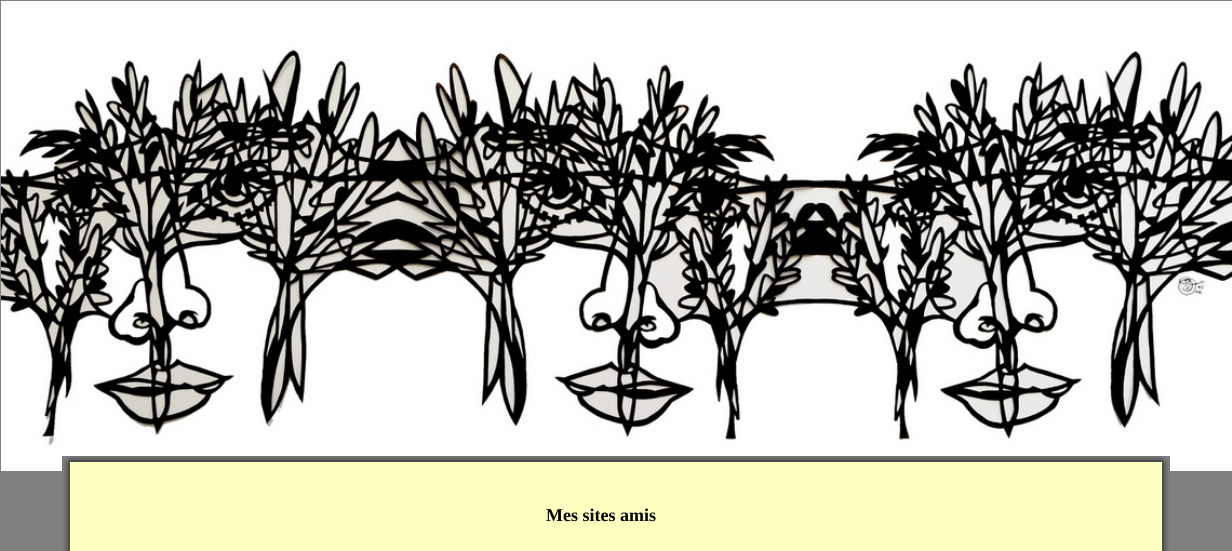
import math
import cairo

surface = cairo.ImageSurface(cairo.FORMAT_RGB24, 1232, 551)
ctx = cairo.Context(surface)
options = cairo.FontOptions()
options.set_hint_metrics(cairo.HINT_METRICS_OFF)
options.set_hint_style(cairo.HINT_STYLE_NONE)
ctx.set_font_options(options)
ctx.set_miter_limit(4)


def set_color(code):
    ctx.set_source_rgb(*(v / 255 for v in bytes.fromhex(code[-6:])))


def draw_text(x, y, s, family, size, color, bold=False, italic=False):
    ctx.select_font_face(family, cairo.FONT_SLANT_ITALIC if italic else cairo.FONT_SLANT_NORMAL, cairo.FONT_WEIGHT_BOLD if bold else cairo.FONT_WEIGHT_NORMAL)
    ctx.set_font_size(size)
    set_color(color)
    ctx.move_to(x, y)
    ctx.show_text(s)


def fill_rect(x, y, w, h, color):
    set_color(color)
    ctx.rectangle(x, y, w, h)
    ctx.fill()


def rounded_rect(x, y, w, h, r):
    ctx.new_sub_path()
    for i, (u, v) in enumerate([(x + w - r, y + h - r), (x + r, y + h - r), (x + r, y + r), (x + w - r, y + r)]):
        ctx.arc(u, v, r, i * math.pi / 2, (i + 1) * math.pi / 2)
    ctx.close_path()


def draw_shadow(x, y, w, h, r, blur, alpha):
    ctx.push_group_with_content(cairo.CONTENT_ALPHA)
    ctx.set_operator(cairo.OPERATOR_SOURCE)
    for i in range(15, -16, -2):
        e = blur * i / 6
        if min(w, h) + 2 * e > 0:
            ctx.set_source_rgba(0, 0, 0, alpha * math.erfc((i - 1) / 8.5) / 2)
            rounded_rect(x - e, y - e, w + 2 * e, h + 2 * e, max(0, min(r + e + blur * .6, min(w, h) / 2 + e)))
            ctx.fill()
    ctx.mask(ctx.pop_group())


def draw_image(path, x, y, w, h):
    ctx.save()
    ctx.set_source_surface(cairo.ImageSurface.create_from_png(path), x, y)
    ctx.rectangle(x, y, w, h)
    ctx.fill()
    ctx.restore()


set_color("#808080")
ctx.paint()
draw_image("assets/img1.png", 1, 1, 1231, 470)
fill_rect(62, 456, 1108, 15, "#808080")
ctx.save()
ctx.rectangle(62, 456, 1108, 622)
ctx.clip()
set_color("#000000")
draw_shadow(70, 462, 1092, 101, 0, 4, 1)
ctx.restore()
fill_rect(70, 462, 1092, 89, "#ffffc0")
draw_text(546, 521, "Mes sites amis", "Liberation Serif", 18, "#000000", bold=True)
surface.write_to_png("output.png")
